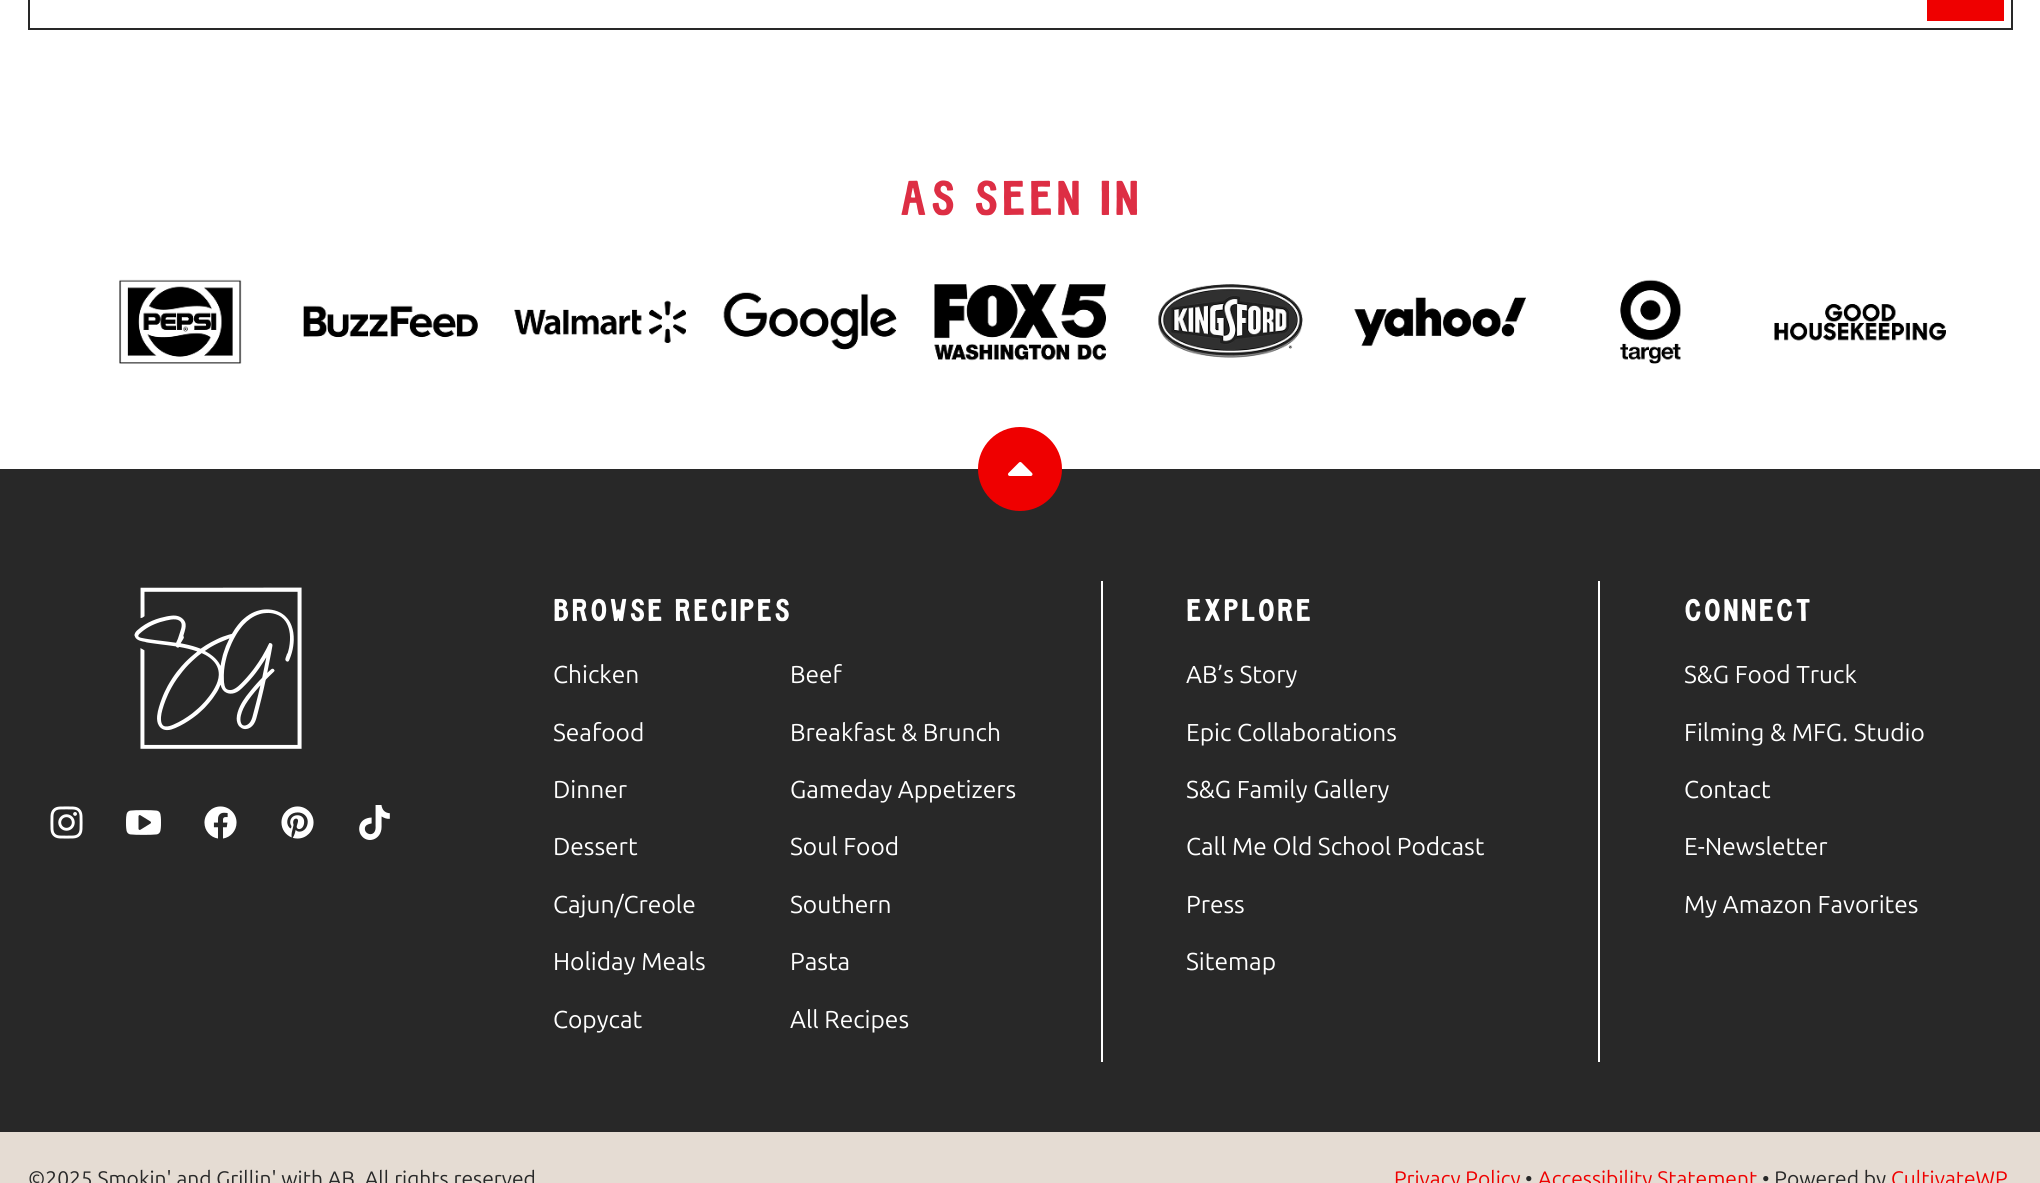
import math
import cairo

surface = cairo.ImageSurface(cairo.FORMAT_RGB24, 2040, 1183)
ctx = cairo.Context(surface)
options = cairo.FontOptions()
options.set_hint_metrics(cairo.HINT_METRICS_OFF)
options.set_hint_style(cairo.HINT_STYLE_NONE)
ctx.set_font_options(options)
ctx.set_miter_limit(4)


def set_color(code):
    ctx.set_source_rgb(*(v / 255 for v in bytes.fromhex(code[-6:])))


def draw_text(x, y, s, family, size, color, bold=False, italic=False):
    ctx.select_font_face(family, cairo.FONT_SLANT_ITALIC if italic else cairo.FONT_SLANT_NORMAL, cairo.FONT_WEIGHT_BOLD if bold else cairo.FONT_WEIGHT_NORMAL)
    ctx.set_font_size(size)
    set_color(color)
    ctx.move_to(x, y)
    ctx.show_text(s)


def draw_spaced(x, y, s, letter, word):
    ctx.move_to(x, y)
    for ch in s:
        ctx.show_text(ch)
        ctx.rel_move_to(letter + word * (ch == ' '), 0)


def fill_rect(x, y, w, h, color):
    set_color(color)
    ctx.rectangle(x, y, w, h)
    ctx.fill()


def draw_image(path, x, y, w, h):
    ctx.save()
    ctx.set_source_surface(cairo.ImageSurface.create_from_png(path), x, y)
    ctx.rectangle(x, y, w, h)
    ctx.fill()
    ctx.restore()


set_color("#ffffff")
ctx.paint()
ctx.rectangle(29, -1, 1983, 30)
set_color("#282828")
ctx.stroke()
fill_rect(1927, 0, 77, 21, "#ef0000")
ctx.select_font_face("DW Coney")
ctx.set_font_size(49)
set_color("#dd2e44")
draw_spaced(899, 215, "AS SEEN IN", 2.5, 0)
draw_image("assets/img1.png", 119, 279, 123, 85)
draw_image("assets/img2.png", 303, 305, 175, 33)
draw_image("assets/img3.png", 514, 300, 172, 43)
draw_image("assets/img4.png", 723, 292, 174, 58)
draw_image("assets/img5.png", 934, 284, 172, 77)
draw_image("assets/img6.png", 1158, 284, 145, 74)
draw_image("assets/img7.png", 1354, 297, 172, 50)
draw_image("assets/img8.png", 1620, 279, 61, 85)
draw_image("assets/img9.png", 1774, 304, 172, 37)
fill_rect(0, 469, 2040, 663, "#282828")
set_color("#ef0000")
ctx.arc(1020, 469, 42, 0, 2 * math.pi)
ctx.fill()
draw_image("assets/img10.png", 1008, 462, 25, 14)
draw_image("assets/img11.png", 134, 587, 168, 162)
ctx.set_font_size(31.5)
set_color("#ffffff")
draw_spaced(553, 621, "BROWSE RECIPES", 1.5, 0)
draw_text(553, 683, "Chicken", "Ubuntu", 24.5, "#ffffff")
draw_text(790, 683, "Beef", "Ubuntu", 24.5, "#ffffff")
draw_text(553, 741, "Seafood", "Ubuntu", 24.5, "#ffffff")
draw_text(790, 741, "Breakfast & Brunch", "Ubuntu", 24.5, "#ffffff")
draw_text(553, 798, "Dinner", "Ubuntu", 24.5, "#ffffff")
draw_text(790, 798, "Gameday Appetizers", "Ubuntu", 24.5, "#ffffff")
draw_text(553, 855, "Dessert", "Ubuntu", 24.5, "#ffffff")
draw_text(790, 855, "Soul Food", "Ubuntu", 24.5, "#ffffff")
draw_text(553, 913, "Cajun/Creole", "Ubuntu", 24.5, "#ffffff")
draw_text(790, 913, "Southern", "Ubuntu", 24.5, "#ffffff")
draw_text(553, 970, "Holiday Meals", "Ubuntu", 24.5, "#ffffff")
draw_text(790, 970, "Pasta", "Ubuntu", 24.5, "#ffffff")
draw_text(553, 1028, "Copycat", "Ubuntu", 24.5, "#ffffff")
draw_text(790, 1028, "All Recipes", "Ubuntu", 24.5, "#ffffff")
fill_rect(1101, 581, 2, 481, "#ffffff")
ctx.select_font_face("DW Coney")
ctx.set_font_size(31.5)
draw_spaced(1186, 621, "EXPLORE", 1.5, 0)
draw_text(1186, 683, "AB’s Story", "Ubuntu", 24.5, "#ffffff")
draw_text(1186, 741, "Epic Collaborations", "Ubuntu", 24.5, "#ffffff")
draw_text(1186, 798, "S&G Family Gallery", "Ubuntu", 24.5, "#ffffff")
draw_text(1186, 855, "Call Me Old School Podcast", "Ubuntu", 24.5, "#ffffff")
draw_text(1186, 913, "Press", "Ubuntu", 24.5, "#ffffff")
draw_text(1186, 970, "Sitemap", "Ubuntu", 24.5, "#ffffff")
fill_rect(1598, 581, 2, 481, "#ffffff")
ctx.select_font_face("DW Coney")
ctx.set_font_size(31.5)
draw_spaced(1684, 621, "CONNECT", 1.5, 0)
draw_text(1684, 683, "S&G Food Truck", "Ubuntu", 24.5, "#ffffff")
draw_text(1684, 741, "Filming & MFG. Studio", "Ubuntu", 24.5, "#ffffff")
draw_text(1684, 798, "Contact", "Ubuntu", 24.5, "#ffffff")
draw_text(1684, 855, "E-Newsletter", "Ubuntu", 24.5, "#ffffff")
draw_text(1684, 913, "My Amazon Favorites", "Ubuntu", 24.5, "#ffffff")
draw_image("assets/img12.png", 50, 806, 33, 33)
draw_image("assets/img13.png", 126, 810, 35, 25)
draw_image("assets/img14.png", 204, 806, 33, 33)
draw_image("assets/img15.png", 281, 806, 33, 33)
draw_image("assets/img16.png", 359, 805, 31, 35)
fill_rect(0, 1132, 2040, 51, "#e5dcd3")
draw_text(28, 1186, "©2025 Smokin' and Grillin' with AB. All rights reserved", "Ubuntu", 21, "#282828")
draw_text(1394, 1186, "Privacy Policy", "Ubuntu", 21, "#ef0000")
draw_text(1525, 1186, "•", "Ubuntu", 21, "#282828")
draw_text(1538, 1186, "Accessibility Statement", "Ubuntu", 21, "#ef0000")
draw_text(1762, 1186, "• Powered by", "Ubuntu", 21, "#282828")
draw_text(1891, 1186, "CultivateWP", "Ubuntu", 21, "#ef0000")
surface.write_to_png("output.png")
